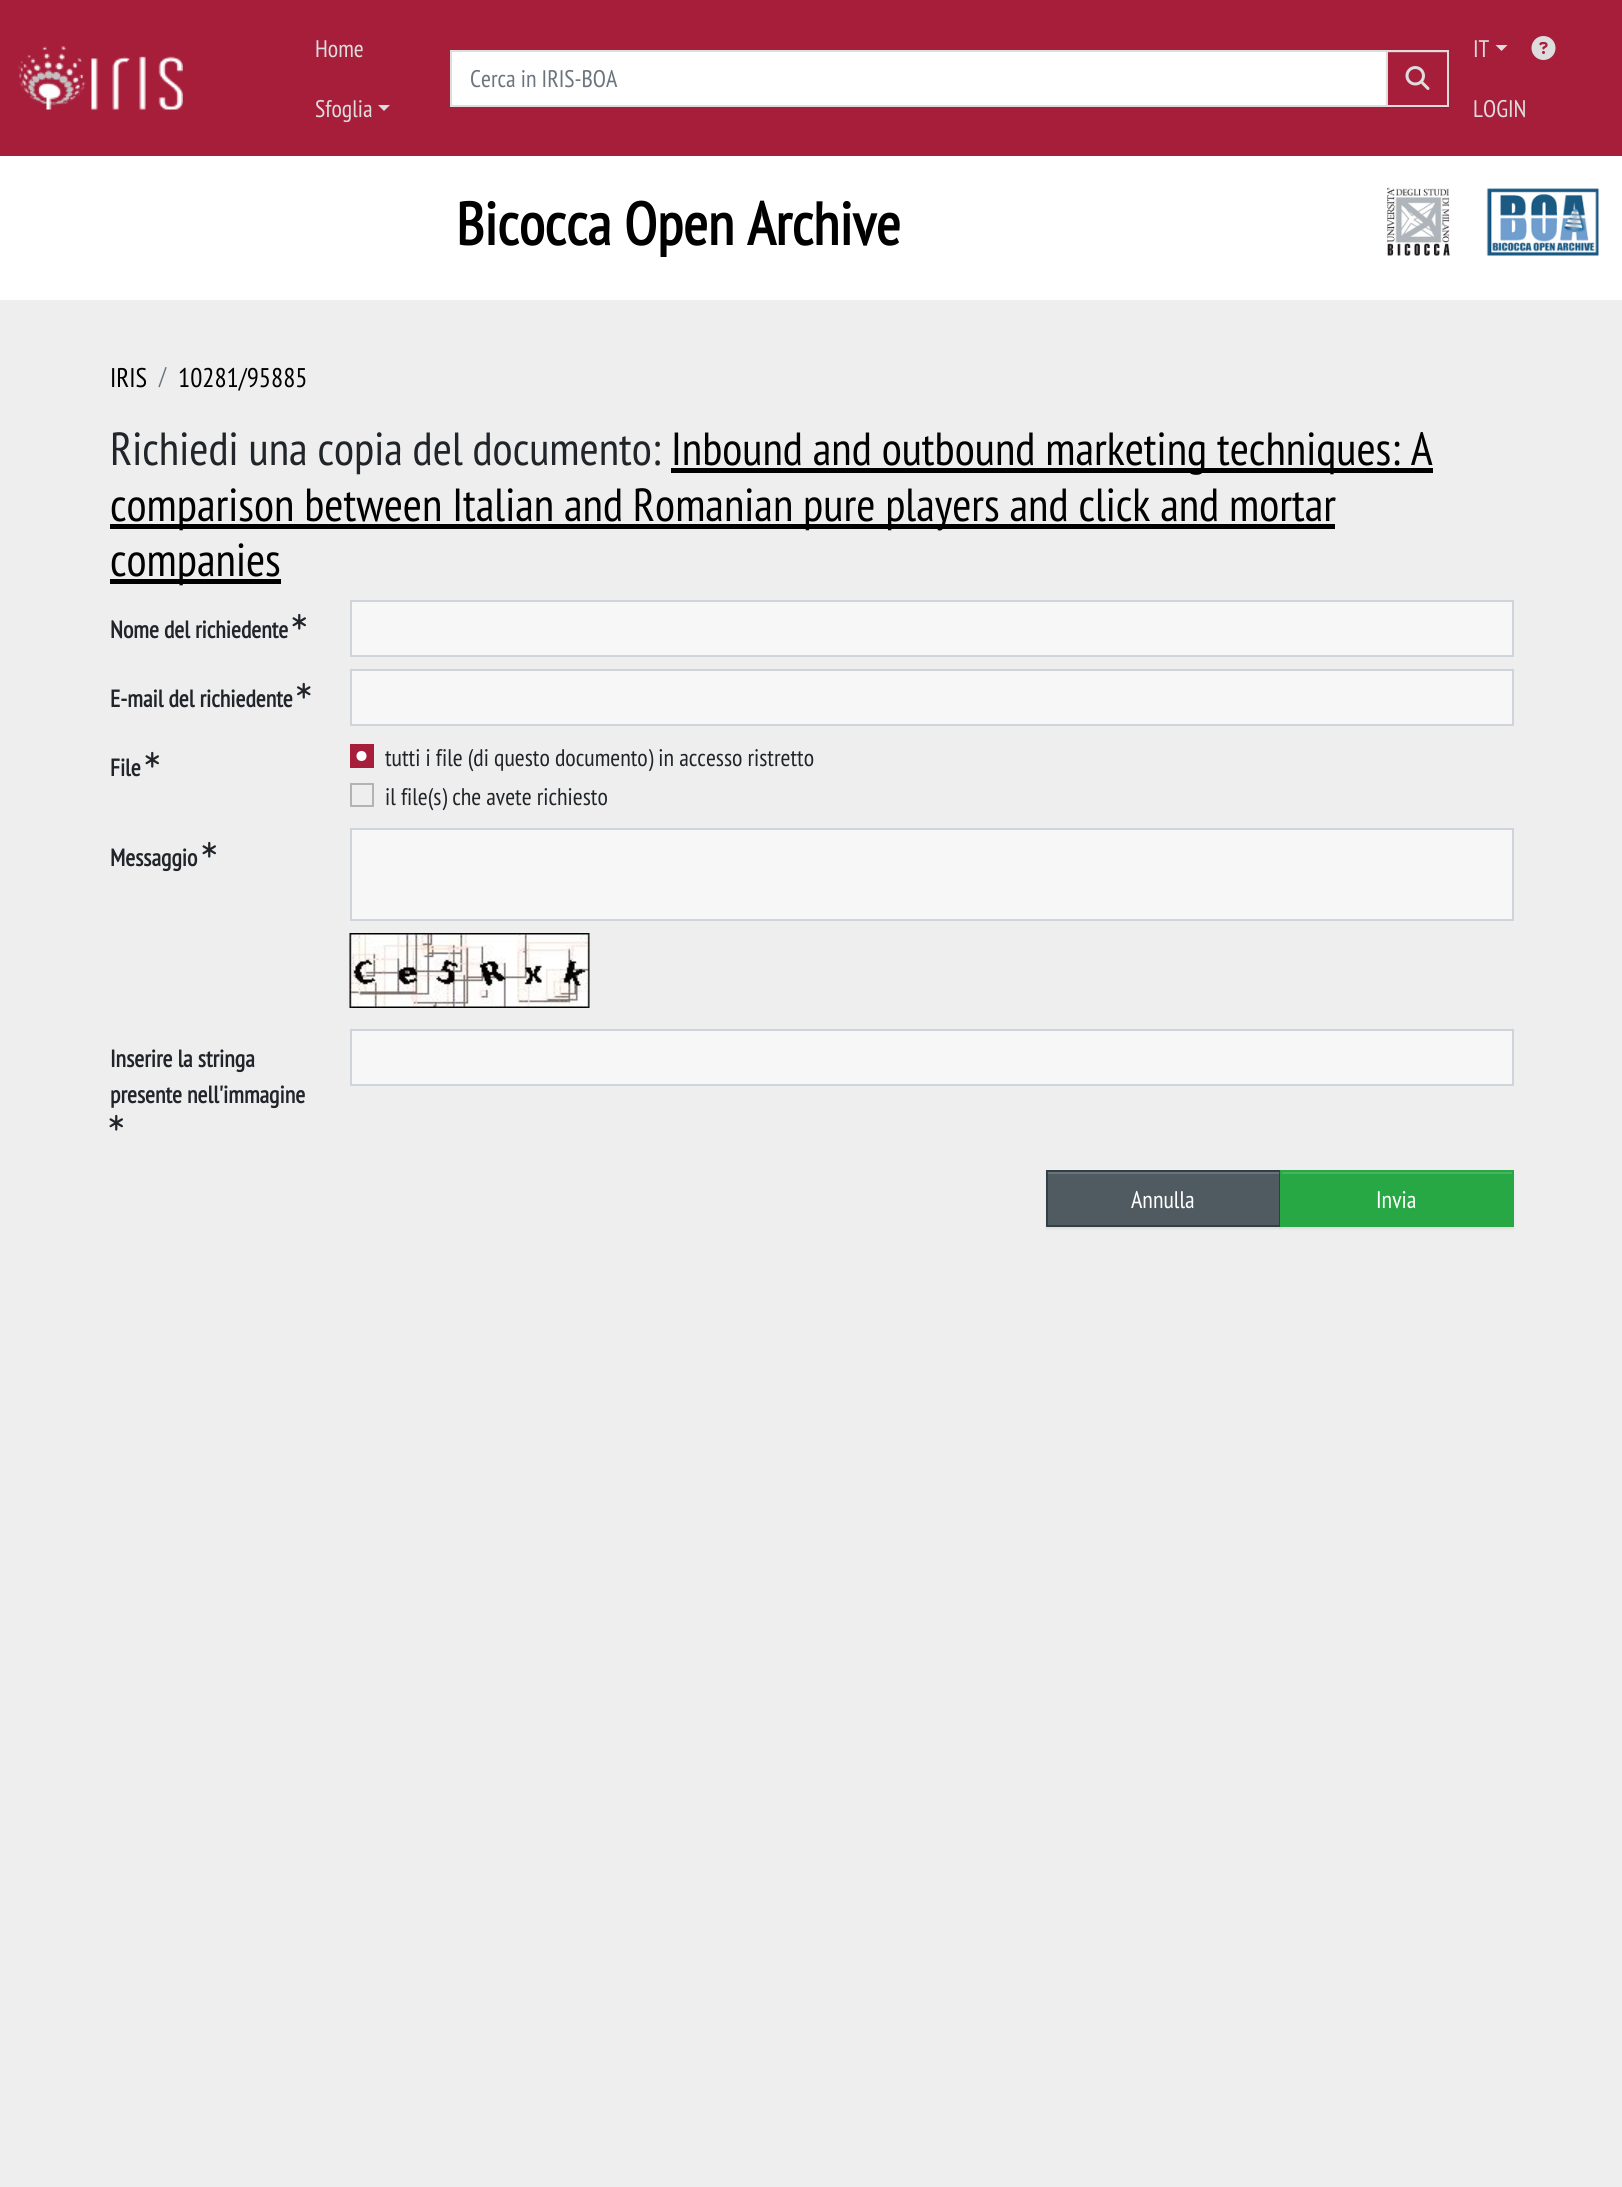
import math
import cairo

surface = cairo.ImageSurface(cairo.FORMAT_RGB24, 1622, 2187)
ctx = cairo.Context(surface)
options = cairo.FontOptions()
options.set_hint_metrics(cairo.HINT_METRICS_OFF)
options.set_hint_style(cairo.HINT_STYLE_NONE)
ctx.set_font_options(options)
ctx.set_miter_limit(4)


def set_color(code):
    ctx.set_source_rgb(*(v / 255 for v in bytes.fromhex(code[-6:])))


def draw_text(x, y, s, family, size, color, bold=False, italic=False):
    ctx.select_font_face(family, cairo.FONT_SLANT_ITALIC if italic else cairo.FONT_SLANT_NORMAL, cairo.FONT_WEIGHT_BOLD if bold else cairo.FONT_WEIGHT_NORMAL)
    ctx.set_font_size(size)
    set_color(color)
    ctx.move_to(x, y)
    ctx.show_text(s)


def fill_rect(x, y, w, h, color):
    set_color(color)
    ctx.rectangle(x, y, w, h)
    ctx.fill()


def rounded_rect(x, y, w, h, r):
    ctx.new_sub_path()
    for i, (u, v) in enumerate([(x + w - r, y + h - r), (x + r, y + h - r), (x + r, y + r), (x + w - r, y + r)]):
        ctx.arc(u, v, r, i * math.pi / 2, (i + 1) * math.pi / 2)
    ctx.close_path()


def draw_shadow(x, y, w, h, r, blur, alpha):
    ctx.push_group_with_content(cairo.CONTENT_ALPHA)
    ctx.set_operator(cairo.OPERATOR_SOURCE)
    for i in range(15, -16, -2):
        e = blur * i / 6
        if min(w, h) + 2 * e > 0:
            ctx.set_source_rgba(0, 0, 0, alpha * math.erfc((i - 1) / 8.5) / 2)
            rounded_rect(x - e, y - e, w + 2 * e, h + 2 * e, max(0, min(r + e + blur * .6, min(w, h) / 2 + e)))
            ctx.fill()
    ctx.mask(ctx.pop_group())


def draw_image(path, x, y, w, h):
    ctx.save()
    ctx.set_source_surface(cairo.ImageSurface.create_from_png(path), x, y)
    ctx.rectangle(x, y, w, h)
    ctx.fill()
    ctx.restore()


set_color("#eeeeee")
ctx.paint()
fill_rect(0, 0, 1622, 156, "#a71e3b")
draw_image("assets/img1.png", 18, 46, 165, 64)
draw_text(315, 57, "Home", "PT Sans Narrow", 24, "#dddddd")
draw_text(315, 117, "Sfoglia", "PT Sans Narrow", 24, "#dddddd")
ctx.new_path()
ctx.move_to(378, 105)
ctx.line_to(390, 105)
ctx.line_to(384, 111)
ctx.close_path()
ctx.fill()
set_color("#ffffff")
ctx.rectangle(451, 51, 936, 55)
ctx.fill_preserve()
set_color("#dddddd")
ctx.stroke()
draw_text(470, 87, "Cerca in IRIS-BOA", "PT Sans Narrow", 24, "#6c757d")
set_color("#000000")
draw_shadow(1386, 51, 63, 57, 0, 1, 0.07)
fill_rect(1388, 53, 59, 52, "#a71e3b")
fill_rect(1388, 52, 60, 1, "#b44058")
ctx.rectangle(1387, 51, 61, 55)
set_color("#dddddd")
ctx.stroke()
draw_image("assets/img2.png", 1405, 66, 25, 24)
draw_text(1473, 57, "IT", "PT Sans Narrow", 24, "#dddddd")
ctx.new_path()
ctx.move_to(1495.5, 45)
ctx.line_to(1507.5, 45)
ctx.line_to(1501.5, 51)
ctx.close_path()
ctx.fill()
draw_image("assets/img3.png", 1531, 36, 25, 24)
draw_text(1473, 117, "LOGIN", "PT Sans Narrow", 24, "#dddddd")
fill_rect(0, 156, 1622, 144, "#ffffff")
draw_text(456, 245, "Bicocca Open Archive", "PT Sans Narrow", 60, "#000000", bold=True)
draw_image("assets/img4.png", 1387, 187, 212, 70)
draw_text(110, 387, "IRIS", "PT Sans Narrow", 27, "#000000")
draw_text(159, 384, "/", "PT Sans Narrow", 24, "#6c757d")
draw_text(178, 387, "10281/95885", "PT Sans Narrow", 27, "#000000")
draw_text(110, 465, "Richiedi una copia del documento:", "PT Sans Narrow", 46.4, "#212529")
fill_rect(671, 468, 762, 5, "#000000")
draw_text(671, 465, "Inbound and outbound marketing techniques: A", "PT Sans Narrow", 46.4, "#000000")
fill_rect(110, 524, 1225, 5, "#000000")
draw_text(110, 521, "comparison between Italian and Romanian pure players and click and mortar", "PT Sans Narrow", 46.4, "#000000")
fill_rect(110, 579, 171, 5, "#000000")
draw_text(110, 576, "companies", "PT Sans Narrow", 46.4, "#000000")
draw_text(110, 638, "Nome del richiedente", "PT Sans Narrow", 24, "#212529", bold=True)
draw_image("assets/img5.png", 292, 613, 14, 17)
set_color("#f7f7f7")
ctx.rectangle(351, 601, 1162, 55)
ctx.fill_preserve()
set_color("#ced4da")
ctx.stroke()
draw_text(110, 707, "E-mail del richiedente", "PT Sans Narrow", 24, "#212529", bold=True)
draw_image("assets/img6.png", 297, 682, 14, 17)
set_color("#f7f7f7")
ctx.rectangle(351, 670, 1162, 55)
ctx.fill_preserve()
set_color("#ced4da")
ctx.stroke()
draw_text(110, 776, "File", "PT Sans Narrow", 24, "#212529", bold=True)
draw_image("assets/img5.png", 145, 751, 14, 17)
fill_rect(350, 744, 24, 24, "#a71e3b")
set_color("#ffffff")
ctx.arc(361.5, 756, 5, 0, 2 * math.pi)
ctx.fill()
draw_text(385, 766, "tutti i file (di questo documento) in accesso ristretto", "PT Sans Narrow", 24, "#212529")
ctx.rectangle(351, 784, 22, 22)
set_color("#b3b3b4")
ctx.stroke()
draw_text(385, 805, "il file(s) che avete richiesto", "PT Sans Narrow", 24, "#212529")
draw_text(110, 866, "Messaggio", "PT Sans Narrow", 24, "#212529", bold=True)
draw_image("assets/img5.png", 202, 841, 14, 17)
set_color("#f7f7f7")
ctx.rectangle(351, 829, 1162, 91)
ctx.fill_preserve()
set_color("#ced4da")
ctx.stroke()
draw_image("assets/img7.png", 349, 933, 241, 75)
draw_text(110, 1067, "Inserire la stringa", "PT Sans Narrow", 24, "#212529", bold=True)
draw_text(110, 1103, "presente nell'immagine", "PT Sans Narrow", 24, "#212529", bold=True)
draw_image("assets/img5.png", 109, 1114, 14, 17)
set_color("#f7f7f7")
ctx.rectangle(351, 1030, 1162, 55)
ctx.fill_preserve()
set_color("#ced4da")
ctx.stroke()
set_color("#000000")
draw_shadow(1046, 1172, 235, 57, 0, 1, 0.07)
fill_rect(1046, 1170, 234, 57, "#505a61")
fill_rect(1047, 1172, 233, 2, "#6a7379")
ctx.rectangle(1047, 1171, 233, 55)
ctx.set_source_rgba(0.176, 0.227, 0.259, 0.82)
ctx.stroke()
draw_text(1131, 1208, "Annulla", "PT Sans Narrow", 24, "#ffffff")
set_color("#000000")
draw_shadow(1280, 1172, 234, 57, 0, 1, 0.07)
fill_rect(1282, 1174, 230, 51, "#28a745")
fill_rect(1281, 1172, 231, 2, "#48b461")
ctx.rectangle(1281, 1171, 232, 55)
set_color("#28a745")
ctx.stroke()
draw_text(1376, 1208, "Invia", "PT Sans Narrow", 24, "#ffffff")
surface.write_to_png("output.png")
